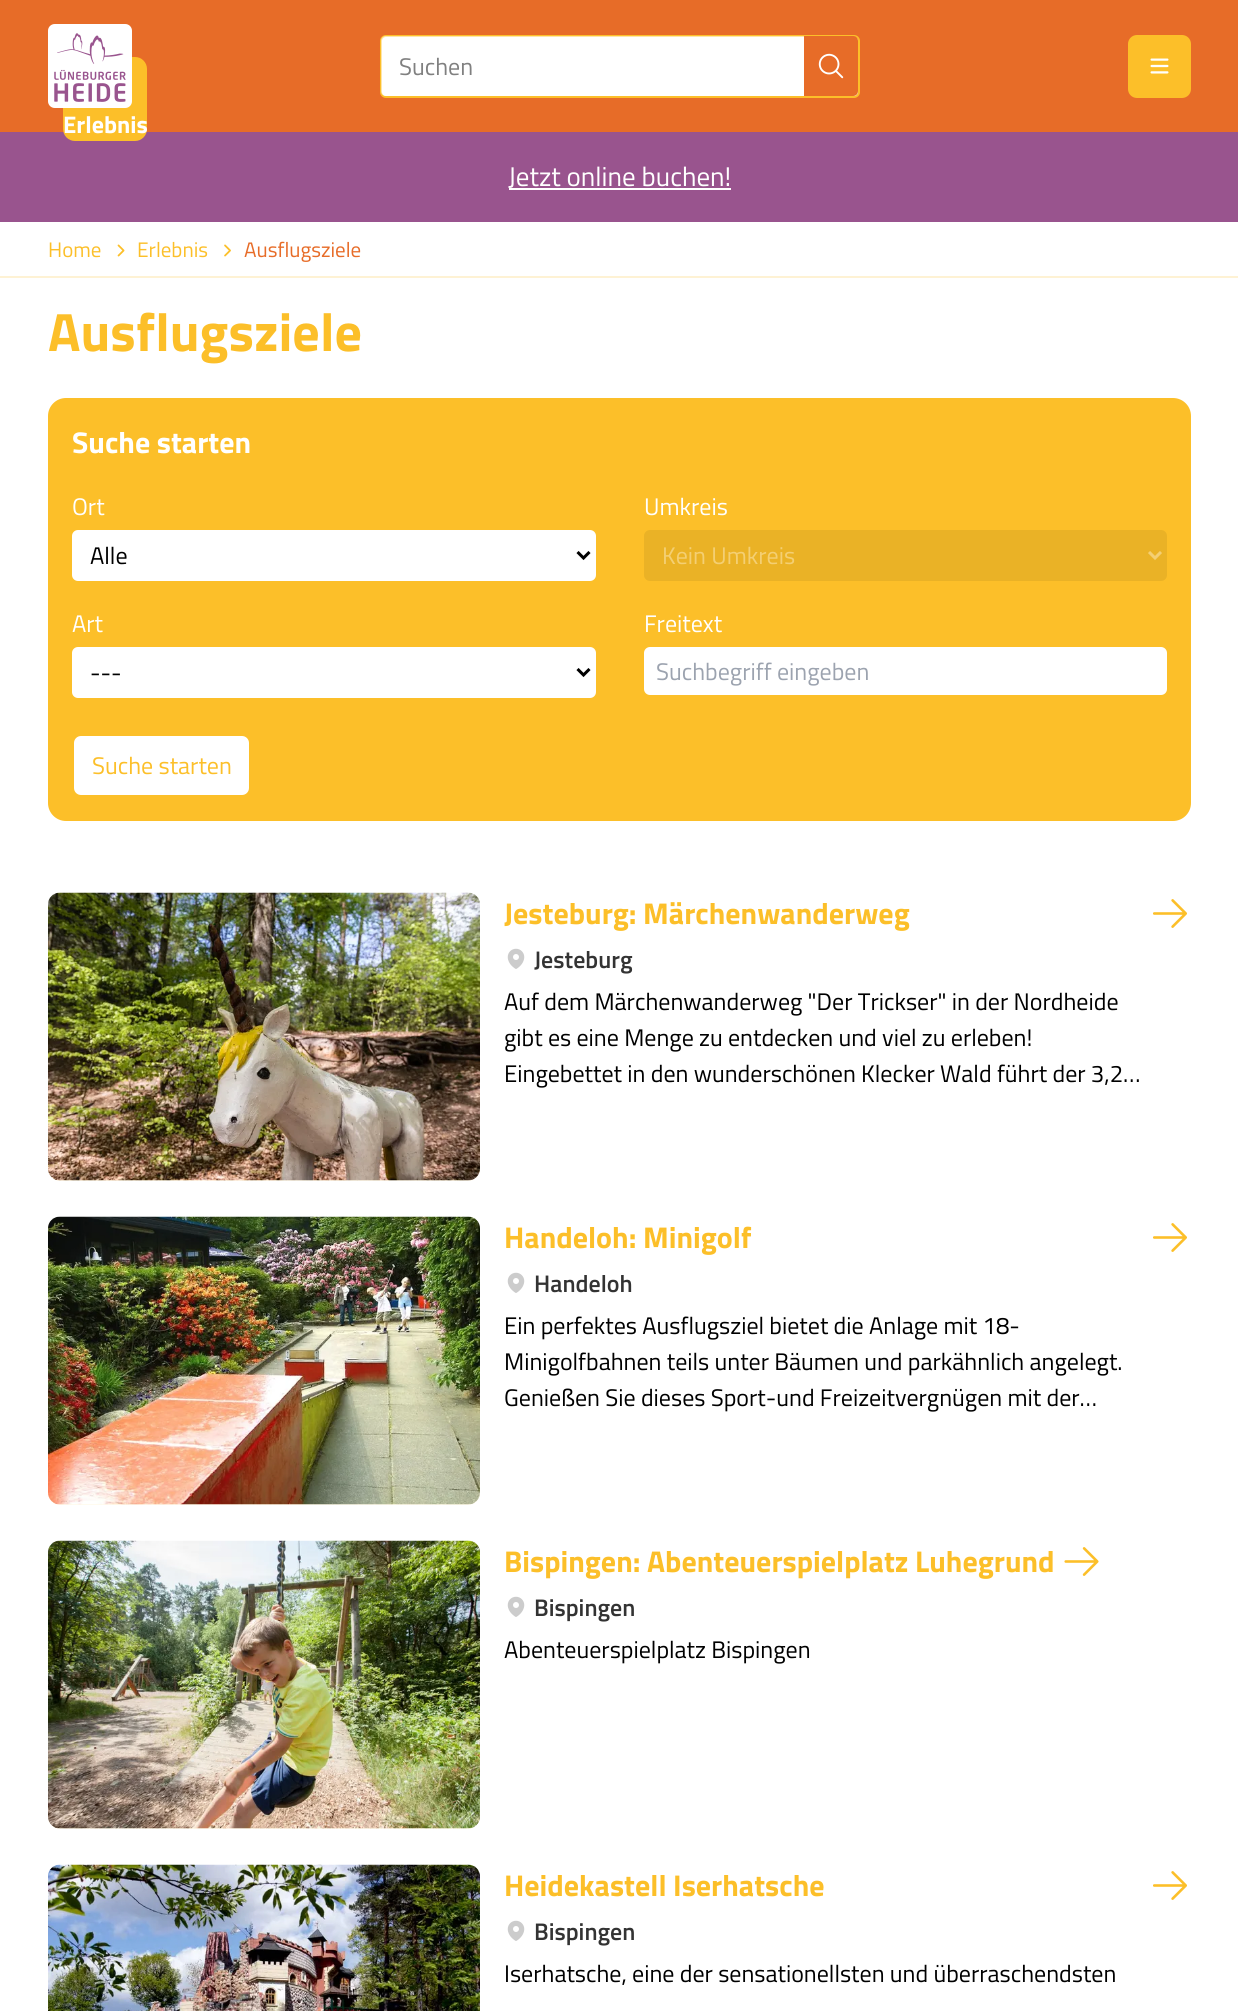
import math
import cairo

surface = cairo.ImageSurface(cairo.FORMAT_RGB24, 1238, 2011)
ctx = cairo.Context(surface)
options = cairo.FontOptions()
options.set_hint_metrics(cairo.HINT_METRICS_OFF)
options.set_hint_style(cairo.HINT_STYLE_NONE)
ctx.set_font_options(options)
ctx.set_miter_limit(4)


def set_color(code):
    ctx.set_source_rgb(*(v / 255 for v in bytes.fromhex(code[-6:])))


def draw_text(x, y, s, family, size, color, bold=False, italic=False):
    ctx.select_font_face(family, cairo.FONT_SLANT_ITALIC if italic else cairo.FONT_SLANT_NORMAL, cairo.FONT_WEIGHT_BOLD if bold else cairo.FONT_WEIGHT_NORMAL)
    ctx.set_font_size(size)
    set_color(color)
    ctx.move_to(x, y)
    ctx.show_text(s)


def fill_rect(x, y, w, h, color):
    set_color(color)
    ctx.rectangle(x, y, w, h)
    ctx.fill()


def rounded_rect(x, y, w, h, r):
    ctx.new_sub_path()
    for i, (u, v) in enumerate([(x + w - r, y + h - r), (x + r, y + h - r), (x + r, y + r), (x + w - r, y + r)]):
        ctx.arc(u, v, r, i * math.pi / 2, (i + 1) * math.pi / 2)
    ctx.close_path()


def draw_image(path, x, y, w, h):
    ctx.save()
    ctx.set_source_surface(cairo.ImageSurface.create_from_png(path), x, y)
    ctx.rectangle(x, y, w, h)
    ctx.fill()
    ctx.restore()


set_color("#ffffff")
ctx.paint()
fill_rect(0, 0, 1238, 132, "#e76c28")
set_color("#ffffff")
rounded_rect(381, 36, 478, 61, 5)
ctx.fill_preserve()
set_color("#fcbf29")
ctx.stroke()
ctx.set_source_rgba(1, 1, 1, 0.6)
ctx.new_path()
ctx.move_to(386, 36)
ctx.line_to(804, 36)
ctx.line_to(804, 96)
ctx.line_to(386, 96)
ctx.curve_to(383, 96, 381, 94, 381, 91)
ctx.line_to(381, 41)
ctx.curve_to(381, 38, 383, 36, 386, 36)
ctx.close_path()
ctx.fill()
set_color("#e76c28")
ctx.new_path()
ctx.move_to(804, 36)
ctx.line_to(853, 36)
ctx.curve_to(856, 36, 858, 38, 858, 41)
ctx.line_to(858, 91)
ctx.curve_to(858, 94, 856, 96, 853, 96)
ctx.line_to(804, 96)
ctx.close_path()
ctx.fill()
draw_image("assets/img1.png", 818, 53, 26, 26)
draw_text(399, 75, "Suchen", "Titillium Web", 24, "#808080")
set_color("#fcbf29")
rounded_rect(1129, 36, 61, 61, 8)
ctx.fill_preserve()
ctx.stroke()
draw_image("assets/img2.png", 1150, 58, 19, 16)
fill_rect(0, 132, 1238, 90, "#99548e")
set_color("#fcbf29")
rounded_rect(63, 57, 84, 84, 12)
ctx.fill()
draw_image("assets/img3.png", 48, 24, 84, 84)
draw_text(63, 133, "Erlebnis", "Titillium Web", 24, "#ffffff", bold=True)
draw_text(508, 186, "Jetzt online buchen!", "Titillium Web", 27, "#ffffff")
fill_rect(509, 188, 222, 2, "#ffffff")
fill_rect(0, 276, 1238, 2, "#fef2d4")
draw_text(48, 257, "Home", "Titillium Web", 21, "#fcbf29")
draw_image("assets/img4.png", 117, 244, 8, 13)
draw_text(137, 257, "Erlebnis", "Titillium Web", 21, "#fcbf29")
draw_image("assets/img5.png", 224, 244, 7, 13)
draw_text(244, 257, "Ausflugsziele", "Titillium Web", 21, "#e76c28")
draw_text(48, 351, "Ausflugsziele", "Titillium Web", 54, "#fcbf29", bold=True)
rounded_rect(48, 398, 1143, 423, 18)
ctx.fill()
draw_text(72, 453, "Suche starten", "Titillium Web", 30, "#ffffff", bold=True)
draw_text(72, 515, "Ort", "Titillium Web", 24, "#ffffff")
rounded_rect(72, 530, 524, 51, 6)
ctx.fill()
ctx.new_path()
ctx.move_to(577.5, 552)
ctx.line_to(583.5, 558)
ctx.line_to(589.5, 552)
set_color("#000000")
ctx.set_line_width(3)
ctx.stroke()
draw_text(90, 564, "Alle", "Titillium Web", 24, "#000000")
draw_text(644, 515, "Umkreis", "Titillium Web", 24, "#ffffff")
set_color("#eab226")
rounded_rect(644, 530, 523, 51, 6)
ctx.fill()
ctx.new_path()
ctx.move_to(1149, 552)
ctx.line_to(1155, 558)
ctx.line_to(1161, 552)
set_color("#f4cf73")
ctx.stroke()
draw_text(662, 564, "Kein Umkreis", "Titillium Web", 24, "#f4cf73")
draw_text(72, 632, "Art", "Titillium Web", 24, "#ffffff")
rounded_rect(72, 647, 524, 51, 6)
ctx.fill()
ctx.new_path()
ctx.move_to(577.5, 669)
ctx.line_to(583.5, 675)
ctx.line_to(589.5, 669)
set_color("#000000")
ctx.stroke()
draw_text(90, 681, "---", "Titillium Web", 24, "#000000")
draw_text(644, 632, "Freitext", "Titillium Web", 24, "#ffffff")
rounded_rect(644, 647, 523, 48, 6)
ctx.fill()
draw_text(656, 680, "Suchbegriff eingeben", "Titillium Web", 24, "#9ca3af")
set_color("#ffffff")
rounded_rect(73, 735, 177, 61, 8)
ctx.fill_preserve()
set_color("#fcbf29")
ctx.set_line_width(2)
ctx.stroke()
draw_text(92, 774, "Suche starten", "Titillium Web", 24, "#fcbf29")
set_color("#fff9ea")
rounded_rect(48, 893, 432, 288, 12)
ctx.fill()
draw_image("assets/img6.png", 48, 892, 432, 289)
draw_text(504, 924, "Jesteburg: Märchenwanderweg", "Titillium Web", 30, "#fcbf29", bold=True)
draw_image("assets/img7.png", 507, 948, 18, 21)
draw_text(534, 968, "Jesteburg", "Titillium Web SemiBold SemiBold", 24, "#333333")
draw_text(504, 1010, "Auf dem Märchenwanderweg \"Der Trickser\" in der Nordheide", "Titillium Web", 24, "#000000")
draw_text(504, 1046, "gibt es eine Menge zu entdecken und viel zu erleben!", "Titillium Web", 24, "#000000")
draw_text(504, 1082, "Eingebettet in den wunderschönen Klecker Wald führt der 3,2…", "Titillium Web", 24, "#000000")
draw_image("assets/img8.png", 1153, 899, 34, 29)
set_color("#fff9ea")
rounded_rect(48, 1217, 432, 288, 12)
ctx.fill()
draw_image("assets/img9.png", 48, 1216, 432, 289)
draw_text(504, 1248, "Handeloh: Minigolf", "Titillium Web", 30, "#fcbf29", bold=True)
draw_image("assets/img7.png", 507, 1272, 18, 21)
draw_text(534, 1292, "Handeloh", "Titillium Web SemiBold SemiBold", 24, "#333333")
draw_text(504, 1334, "Ein perfektes Ausflugsziel bietet die Anlage mit 18-", "Titillium Web", 24, "#000000")
draw_text(504, 1370, "Minigolfbahnen teils unter Bäumen und parkähnlich angelegt.", "Titillium Web", 24, "#000000")
draw_text(504, 1406, "Genießen Sie dieses Sport-und Freizeitvergnügen mit der…", "Titillium Web", 24, "#000000")
draw_image("assets/img8.png", 1153, 1223, 34, 29)
set_color("#fff9ea")
rounded_rect(48, 1541, 432, 288, 12)
ctx.fill()
draw_image("assets/img10.png", 48, 1540, 432, 289)
draw_text(504, 1572, "Bispingen: Abenteuerspielplatz Luhegrund", "Titillium Web", 30, "#fcbf29", bold=True)
draw_image("assets/img7.png", 507, 1596, 18, 21)
draw_text(534, 1616, "Bispingen", "Titillium Web SemiBold SemiBold", 24, "#333333")
draw_text(504, 1658, "Abenteuerspielplatz Bispingen", "Titillium Web", 24, "#000000")
draw_image("assets/img11.png", 1064, 1547, 35, 29)
draw_image("assets/img12.png", 48, 1864, 432, 147)
draw_text(504, 1896, "Heidekastell Iserhatsche", "Titillium Web", 30, "#fcbf29", bold=True)
draw_image("assets/img7.png", 507, 1920, 18, 21)
draw_text(534, 1940, "Bispingen", "Titillium Web SemiBold SemiBold", 24, "#333333")
draw_text(504, 1982, "Iserhatsche, eine der sensationellsten und überraschendsten", "Titillium Web", 24, "#000000")
draw_image("assets/img8.png", 1153, 1871, 34, 29)
surface.write_to_png("output.png")
